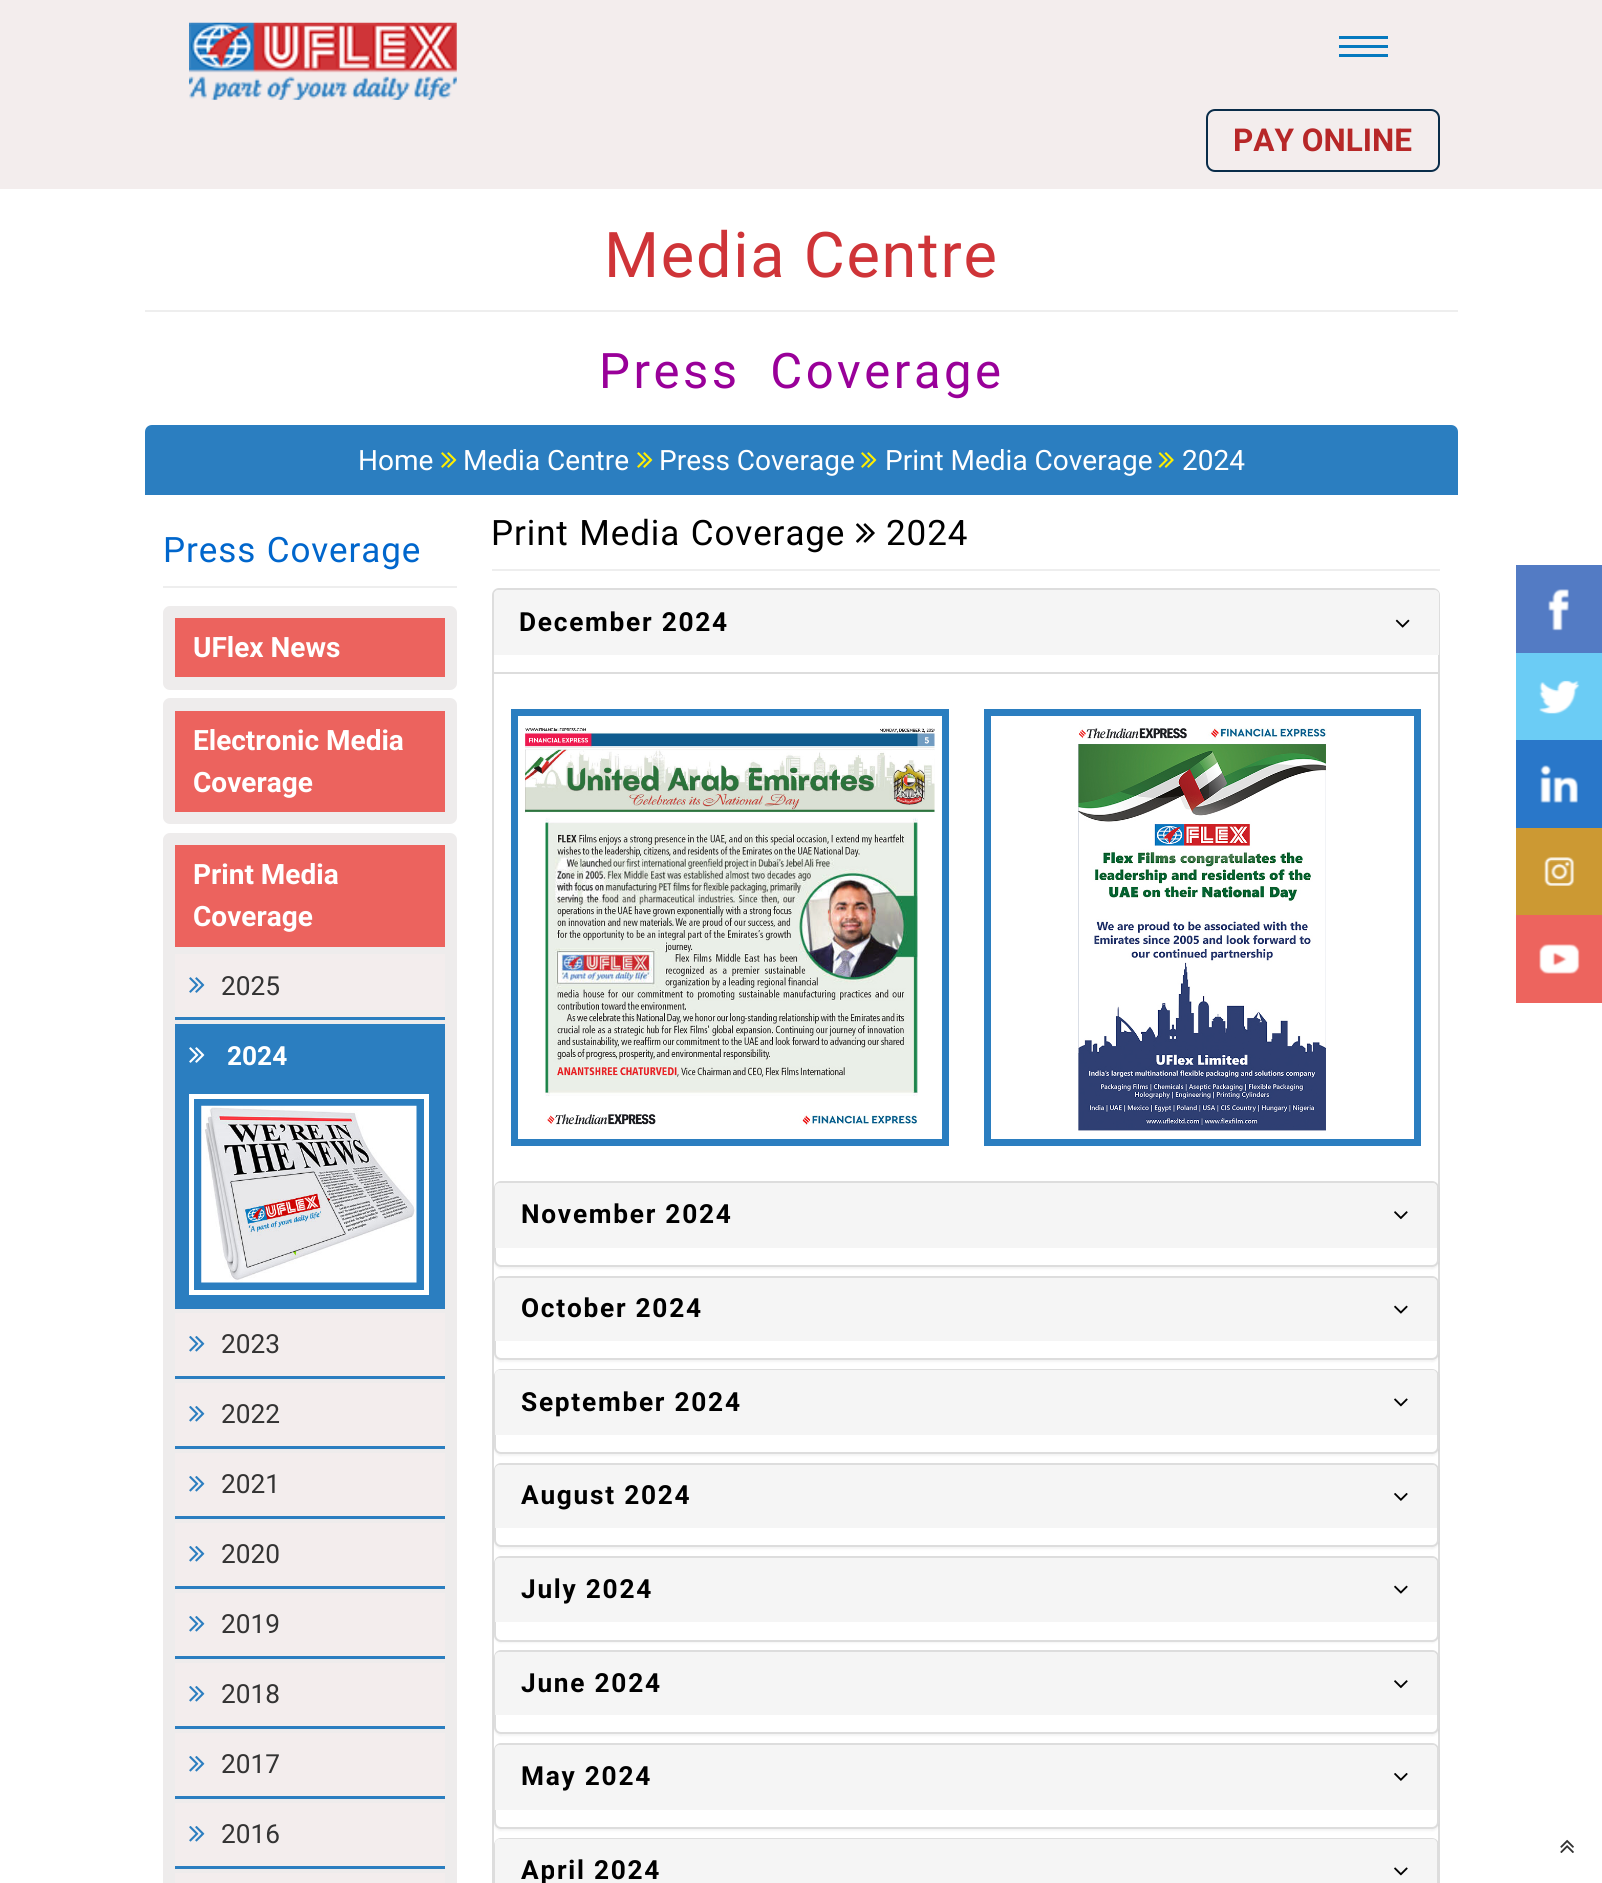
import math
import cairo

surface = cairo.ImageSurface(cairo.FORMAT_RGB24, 1602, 1883)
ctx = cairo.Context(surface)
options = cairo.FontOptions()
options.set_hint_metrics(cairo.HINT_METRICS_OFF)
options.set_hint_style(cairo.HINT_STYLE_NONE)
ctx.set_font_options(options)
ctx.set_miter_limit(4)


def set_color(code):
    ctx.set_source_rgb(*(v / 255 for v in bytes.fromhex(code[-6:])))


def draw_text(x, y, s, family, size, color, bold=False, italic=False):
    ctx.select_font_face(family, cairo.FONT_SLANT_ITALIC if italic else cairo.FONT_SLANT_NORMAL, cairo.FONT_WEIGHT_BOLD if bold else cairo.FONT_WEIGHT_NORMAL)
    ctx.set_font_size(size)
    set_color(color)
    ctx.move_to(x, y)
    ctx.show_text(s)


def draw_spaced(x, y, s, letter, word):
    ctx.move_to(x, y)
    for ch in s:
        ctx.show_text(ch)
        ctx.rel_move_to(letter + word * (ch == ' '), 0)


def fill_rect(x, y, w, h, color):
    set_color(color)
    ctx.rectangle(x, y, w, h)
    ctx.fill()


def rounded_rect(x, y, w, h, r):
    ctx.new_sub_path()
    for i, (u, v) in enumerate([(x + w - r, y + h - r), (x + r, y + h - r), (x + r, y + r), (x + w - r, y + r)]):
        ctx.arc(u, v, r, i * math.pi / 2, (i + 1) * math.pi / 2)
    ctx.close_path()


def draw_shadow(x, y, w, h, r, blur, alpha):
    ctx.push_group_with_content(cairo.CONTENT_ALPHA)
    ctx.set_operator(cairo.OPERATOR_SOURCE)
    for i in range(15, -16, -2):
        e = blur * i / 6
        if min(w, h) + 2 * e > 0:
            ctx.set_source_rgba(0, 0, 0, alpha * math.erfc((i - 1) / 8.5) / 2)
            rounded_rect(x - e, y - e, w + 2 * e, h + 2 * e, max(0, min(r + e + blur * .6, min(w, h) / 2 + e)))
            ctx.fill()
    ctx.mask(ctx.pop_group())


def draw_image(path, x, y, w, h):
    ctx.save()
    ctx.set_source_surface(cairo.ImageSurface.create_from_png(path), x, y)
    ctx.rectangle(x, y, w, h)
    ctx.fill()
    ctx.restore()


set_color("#ffffff")
ctx.paint()
fill_rect(0, 0, 1602, 189, "#f3eded")
draw_image("assets/img1.png", 189, 22, 268, 78)
set_color("#0579bf")
ctx.new_path()
ctx.move_to(1339, 39)
ctx.line_to(1339, 36)
ctx.line_to(1388, 36)
ctx.line_to(1388, 39)
ctx.close_path()
ctx.move_to(1339, 48)
ctx.line_to(1339, 45)
ctx.line_to(1388, 45)
ctx.line_to(1388, 48)
ctx.close_path()
ctx.move_to(1339, 57)
ctx.line_to(1339, 54)
ctx.line_to(1388, 54)
ctx.line_to(1388, 57)
ctx.close_path()
ctx.fill()
rounded_rect(1207, 110, 232, 61, 8)
set_color("#092c49")
ctx.stroke()
draw_text(1233, 151, "PAY ONLINE", "Roboto", 31.5, "#b72728", bold=True)
ctx.select_font_face("Roboto")
ctx.set_font_size(63)
set_color("#cf3438")
draw_spaced(604, 277, "Media Centre", 1.75, 0)
fill_rect(145, 310, 1313, 2, "#eeeeee")
ctx.set_font_size(49)
set_color("#990099")
draw_spaced(599, 388, "Press Coverage", 3.5, 14)
set_color("#2b7ec0")
ctx.new_path()
ctx.move_to(152, 425)
ctx.line_to(1451, 425)
ctx.curve_to(1455, 425, 1458, 428, 1458, 432)
ctx.line_to(1458, 495)
ctx.line_to(145, 495)
ctx.line_to(145, 432)
ctx.curve_to(145, 428, 148, 425, 152, 425)
ctx.close_path()
ctx.fill()
draw_text(358, 470, "Home", "Roboto", 28, "#ffffff")
draw_image("assets/img2.png", 441, 452, 16, 16)
draw_text(463, 470, "Media Centre", "Roboto", 28, "#ffffff")
draw_image("assets/img2.png", 637, 452, 16, 16)
draw_text(659, 470, "Press Coverage", "Roboto", 28, "#ffffff")
draw_image("assets/img2.png", 861, 452, 16, 16)
draw_text(885, 470, "Print Media Coverage", "Roboto", 28, "#ffffff")
draw_image("assets/img3.png", 1158, 452, 16, 16)
draw_text(1182, 470, "2024", "Roboto", 28, "#ffffff")
ctx.set_font_size(35)
set_color("#0066cc")
draw_spaced(163, 562, "Press Coverage", 0.9, 1)
fill_rect(163, 586, 294, 2, "#eeeeee")
set_color("#eeecec")
rounded_rect(165, 608, 290, 80, 5)
ctx.fill_preserve()
ctx.set_line_width(4)
ctx.stroke()
fill_rect(175, 618, 270, 59, "#ec635e")
draw_text(193, 657, "UFlex News", "Roboto", 28, "#ffffff", bold=True)
set_color("#eeecec")
rounded_rect(165, 700, 290, 122, 5)
ctx.fill_preserve()
ctx.stroke()
fill_rect(175, 711, 270, 101, "#ec635e")
draw_text(193, 750, "Electronic Media", "Roboto", 28, "#ffffff", bold=True)
draw_text(193, 792, "Coverage", "Roboto", 28, "#ffffff", bold=True)
set_color("#eeecec")
rounded_rect(165, 835, 290, 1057, 5)
ctx.fill_preserve()
ctx.stroke()
fill_rect(175, 845, 270, 102, "#ec635e")
draw_text(193, 884, "Print Media", "Roboto", 28, "#ffffff", bold=True)
draw_text(193, 926, "Coverage", "Roboto", 28, "#ffffff", bold=True)
fill_rect(175, 954, 270, 63, "#f3eded")
fill_rect(175, 1017, 270, 3, "#2b7ec0")
draw_image("assets/img4.png", 189, 977, 16, 16)
draw_text(221, 995, "2025", "Roboto", 26.25, "#333333")
fill_rect(175, 1024, 270, 285, "#2b7ec0")
draw_image("assets/img5.png", 189, 1047, 16, 16)
draw_text(227, 1065, "2024", "Roboto", 26.25, "#ffffff", bold=True)
ctx.rectangle(191.5, 1096.5, 235, 196)
ctx.set_line_width(5)
ctx.stroke()
draw_image("assets/img6.png", 201, 1105, 216, 178)
fill_rect(175, 1313, 270, 63, "#f3eded")
fill_rect(175, 1376, 270, 3, "#2b7ec0")
draw_image("assets/img7.png", 189, 1336, 16, 16)
draw_text(221, 1353, "2023", "Roboto", 26.25, "#333333")
fill_rect(175, 1383, 270, 63, "#f3eded")
fill_rect(175, 1446, 270, 3, "#2b7ec0")
draw_image("assets/img7.png", 189, 1406, 16, 16)
draw_text(221, 1423, "2022", "Roboto", 26.25, "#333333")
fill_rect(175, 1453, 270, 63, "#f3eded")
fill_rect(175, 1516, 270, 3, "#2b7ec0")
draw_image("assets/img7.png", 189, 1476, 16, 16)
draw_text(221, 1493, "2021", "Roboto", 26.25, "#333333")
fill_rect(175, 1523, 270, 63, "#f3eded")
fill_rect(175, 1586, 270, 3, "#2b7ec0")
draw_image("assets/img7.png", 189, 1546, 16, 16)
draw_text(221, 1563, "2020", "Roboto", 26.25, "#333333")
fill_rect(175, 1593, 270, 63, "#f3eded")
fill_rect(175, 1656, 270, 3, "#2b7ec0")
draw_image("assets/img7.png", 189, 1616, 16, 16)
draw_text(221, 1633, "2019", "Roboto", 26.25, "#333333")
fill_rect(175, 1663, 270, 63, "#f3eded")
fill_rect(175, 1726, 270, 3, "#2b7ec0")
draw_image("assets/img7.png", 189, 1686, 16, 16)
draw_text(221, 1703, "2018", "Roboto", 26.25, "#333333")
fill_rect(175, 1733, 270, 63, "#f3eded")
fill_rect(175, 1796, 270, 3, "#2b7ec0")
draw_image("assets/img7.png", 189, 1756, 16, 16)
draw_text(221, 1773, "2017", "Roboto", 26.25, "#333333")
fill_rect(175, 1803, 270, 63, "#f3eded")
fill_rect(175, 1866, 270, 3, "#2b7ec0")
draw_image("assets/img7.png", 189, 1826, 16, 16)
draw_text(221, 1843, "2016", "Roboto", 26.25, "#333333")
fill_rect(175, 1873, 270, 10, "#f3eded")
ctx.set_font_size(35)
set_color("#000000")
draw_spaced(491, 545, "Print Media Coverage", 0.9, 1)
draw_image("assets/img8.png", 856, 523, 19, 20)
draw_spaced(886, 545, "2024", 0.9, 0)
fill_rect(492, 569, 948, 2, "#eeeeee")
rounded_rect(493, 589, 946, 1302, 6)
set_color("#dddddd")
ctx.set_line_width(2)
ctx.stroke()
set_color("#f5f5f5")
ctx.new_path()
ctx.move_to(498, 590)
ctx.line_to(1435, 590)
ctx.curve_to(1437, 590, 1439, 592, 1439, 594)
ctx.line_to(1439, 655)
ctx.line_to(494, 655)
ctx.line_to(494, 594)
ctx.curve_to(494, 592, 496, 590, 498, 590)
ctx.close_path()
ctx.fill()
ctx.select_font_face("Roboto", cairo.FONT_SLANT_NORMAL, cairo.FONT_WEIGHT_BOLD)
ctx.set_font_size(26.25)
set_color("#000000")
draw_spaced(519, 631, "December 2024", 1.75, 0)
draw_image("assets/img9.png", 1395, 619, 15, 9)
fill_rect(494, 672, 945, 2, "#dddddd")
ctx.rectangle(514.5, 712.5, 431, 430)
set_color("#2b7ec0")
ctx.set_line_width(7)
ctx.stroke()
draw_image("assets/img10.png", 525, 728, 410, 399)
ctx.rectangle(987.5, 712.5, 430, 430)
ctx.stroke()
draw_image("assets/img11.png", 1078, 727, 249, 404)
set_color("#000000")
draw_shadow(494, 1183, 945, 86, 7, 1, 0.05)
set_color("#ffffff")
rounded_rect(495, 1182, 943, 84, 6)
ctx.fill_preserve()
set_color("#dddddd")
ctx.set_line_width(2)
ctx.stroke()
set_color("#f5f5f5")
ctx.new_path()
ctx.move_to(499, 1183)
ctx.line_to(1433, 1183)
ctx.curve_to(1435, 1183, 1437, 1185, 1437, 1187)
ctx.line_to(1437, 1248)
ctx.line_to(495, 1248)
ctx.line_to(495, 1187)
ctx.curve_to(495, 1185, 497, 1183, 499, 1183)
ctx.close_path()
ctx.fill()
set_color("#000000")
draw_spaced(521, 1223, "November 2024", 1.75, 0)
draw_image("assets/img12.png", 1394, 1211, 14, 9)
set_color("#000000")
draw_shadow(494, 1278, 945, 84, 7, 1, 0.05)
set_color("#ffffff")
rounded_rect(495, 1277, 943, 82, 6)
ctx.fill_preserve()
set_color("#dddddd")
ctx.stroke()
set_color("#f5f5f5")
ctx.new_path()
ctx.move_to(499, 1278)
ctx.line_to(1433, 1278)
ctx.curve_to(1435, 1278, 1437, 1280, 1437, 1282)
ctx.line_to(1437, 1341)
ctx.line_to(495, 1341)
ctx.line_to(495, 1282)
ctx.curve_to(495, 1280, 497, 1278, 499, 1278)
ctx.close_path()
ctx.fill()
set_color("#000000")
draw_spaced(521, 1317, "October 2024", 1.75, 0)
draw_image("assets/img13.png", 1394, 1305, 14, 9)
set_color("#000000")
draw_shadow(494, 1370, 945, 86, 7, 1, 0.05)
set_color("#ffffff")
rounded_rect(495, 1370, 943, 83, 6)
ctx.fill_preserve()
set_color("#dddddd")
ctx.stroke()
set_color("#f5f5f5")
ctx.new_path()
ctx.move_to(499, 1370)
ctx.line_to(1433, 1370)
ctx.curve_to(1435, 1370, 1437, 1372, 1437, 1374)
ctx.line_to(1437, 1435)
ctx.line_to(495, 1435)
ctx.line_to(495, 1374)
ctx.curve_to(495, 1372, 497, 1370, 499, 1370)
ctx.close_path()
ctx.fill()
set_color("#000000")
draw_spaced(521, 1411, "September 2024", 1.75, 0)
draw_image("assets/img14.png", 1394, 1398, 14, 9)
set_color("#000000")
draw_shadow(494, 1465, 945, 84, 7, 1, 0.05)
set_color("#ffffff")
rounded_rect(495, 1464, 943, 82, 6)
ctx.fill_preserve()
set_color("#dddddd")
ctx.stroke()
set_color("#f5f5f5")
ctx.new_path()
ctx.move_to(499, 1465)
ctx.line_to(1433, 1465)
ctx.curve_to(1435, 1465, 1437, 1467, 1437, 1469)
ctx.line_to(1437, 1528)
ctx.line_to(495, 1528)
ctx.line_to(495, 1469)
ctx.curve_to(495, 1467, 497, 1465, 499, 1465)
ctx.close_path()
ctx.fill()
set_color("#000000")
draw_spaced(521, 1504, "August 2024", 1.75, 0)
draw_image("assets/img15.png", 1394, 1493, 14, 8)
set_color("#000000")
draw_shadow(494, 1558, 945, 85, 7, 1, 0.05)
set_color("#ffffff")
rounded_rect(495, 1557, 943, 84, 6)
ctx.fill_preserve()
set_color("#dddddd")
ctx.stroke()
set_color("#f5f5f5")
ctx.new_path()
ctx.move_to(499, 1558)
ctx.line_to(1433, 1558)
ctx.curve_to(1435, 1558, 1437, 1560, 1437, 1562)
ctx.line_to(1437, 1622)
ctx.line_to(495, 1622)
ctx.line_to(495, 1562)
ctx.curve_to(495, 1560, 497, 1558, 499, 1558)
ctx.close_path()
ctx.fill()
set_color("#000000")
draw_spaced(521, 1598, "July 2024", 1.75, 0)
draw_image("assets/img13.png", 1394, 1585, 14, 9)
set_color("#000000")
draw_shadow(494, 1652, 945, 84, 7, 1, 0.05)
set_color("#ffffff")
rounded_rect(495, 1651, 943, 82, 6)
ctx.fill_preserve()
set_color("#dddddd")
ctx.stroke()
set_color("#f5f5f5")
ctx.new_path()
ctx.move_to(499, 1652)
ctx.line_to(1433, 1652)
ctx.curve_to(1435, 1652, 1437, 1654, 1437, 1656)
ctx.line_to(1437, 1715)
ctx.line_to(495, 1715)
ctx.line_to(495, 1656)
ctx.curve_to(495, 1654, 497, 1652, 499, 1652)
ctx.close_path()
ctx.fill()
set_color("#000000")
draw_spaced(521, 1692, "June 2024", 1.75, 0)
draw_image("assets/img12.png", 1394, 1680, 14, 9)
set_color("#000000")
draw_shadow(494, 1745, 945, 86, 7, 1, 0.05)
set_color("#ffffff")
rounded_rect(495, 1744, 943, 84, 6)
ctx.fill_preserve()
set_color("#dddddd")
ctx.stroke()
set_color("#f5f5f5")
ctx.new_path()
ctx.move_to(499, 1745)
ctx.line_to(1433, 1745)
ctx.curve_to(1435, 1745, 1437, 1747, 1437, 1749)
ctx.line_to(1437, 1810)
ctx.line_to(495, 1810)
ctx.line_to(495, 1749)
ctx.curve_to(495, 1747, 497, 1745, 499, 1745)
ctx.close_path()
ctx.fill()
set_color("#000000")
draw_spaced(521, 1785, "May 2024", 1.75, 0)
draw_image("assets/img15.png", 1394, 1773, 14, 8)
rounded_rect(495, 1839, 943, 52, 6)
set_color("#dddddd")
ctx.stroke()
set_color("#f5f5f5")
ctx.new_path()
ctx.move_to(499, 1839)
ctx.line_to(1433, 1839)
ctx.curve_to(1435, 1839, 1437, 1841, 1437, 1843)
ctx.line_to(1437, 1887)
ctx.line_to(495, 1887)
ctx.line_to(495, 1843)
ctx.curve_to(495, 1841, 497, 1839, 499, 1839)
ctx.close_path()
ctx.fill()
set_color("#000000")
draw_spaced(521, 1879, "April 2024", 1.75, 0)
draw_image("assets/img14.png", 1394, 1867, 14, 9)
fill_rect(1516, 565, 86, 88, "#537bc4")
draw_image("assets/img16.png", 1548, 589, 21, 42)
fill_rect(1516, 653, 86, 87, "#6bccf5")
draw_image("assets/img17.png", 1539, 680, 41, 34)
fill_rect(1516, 740, 86, 88, "#2977c9")
draw_image("assets/img18.png", 1540, 765, 38, 38)
fill_rect(1516, 828, 86, 87, "#cc9933")
draw_image("assets/img19.png", 1544, 857, 31, 29)
fill_rect(1516, 915, 86, 88, "#ed645e")
draw_image("assets/img20.png", 1539, 944, 41, 30)
draw_image("assets/img21.png", 1560, 1839, 14, 14)
surface.write_to_png("output.png")
